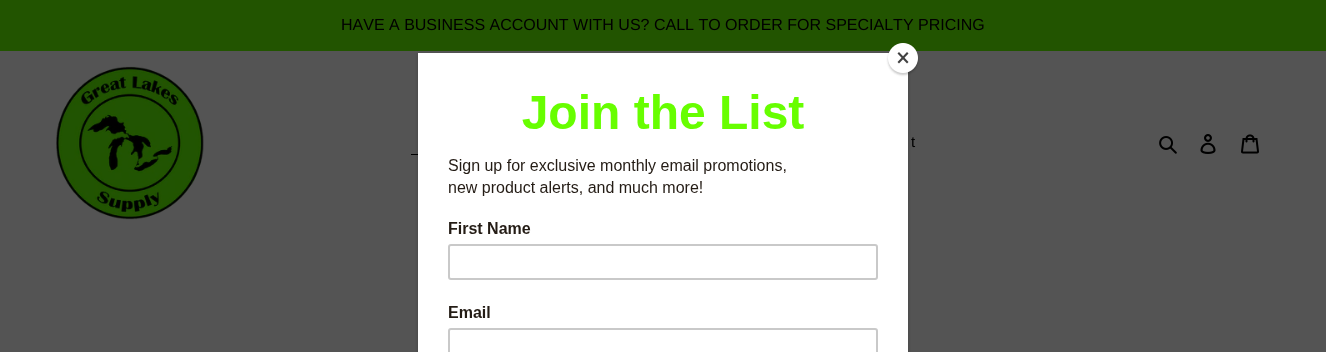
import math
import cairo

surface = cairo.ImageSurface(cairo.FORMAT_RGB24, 1326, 352)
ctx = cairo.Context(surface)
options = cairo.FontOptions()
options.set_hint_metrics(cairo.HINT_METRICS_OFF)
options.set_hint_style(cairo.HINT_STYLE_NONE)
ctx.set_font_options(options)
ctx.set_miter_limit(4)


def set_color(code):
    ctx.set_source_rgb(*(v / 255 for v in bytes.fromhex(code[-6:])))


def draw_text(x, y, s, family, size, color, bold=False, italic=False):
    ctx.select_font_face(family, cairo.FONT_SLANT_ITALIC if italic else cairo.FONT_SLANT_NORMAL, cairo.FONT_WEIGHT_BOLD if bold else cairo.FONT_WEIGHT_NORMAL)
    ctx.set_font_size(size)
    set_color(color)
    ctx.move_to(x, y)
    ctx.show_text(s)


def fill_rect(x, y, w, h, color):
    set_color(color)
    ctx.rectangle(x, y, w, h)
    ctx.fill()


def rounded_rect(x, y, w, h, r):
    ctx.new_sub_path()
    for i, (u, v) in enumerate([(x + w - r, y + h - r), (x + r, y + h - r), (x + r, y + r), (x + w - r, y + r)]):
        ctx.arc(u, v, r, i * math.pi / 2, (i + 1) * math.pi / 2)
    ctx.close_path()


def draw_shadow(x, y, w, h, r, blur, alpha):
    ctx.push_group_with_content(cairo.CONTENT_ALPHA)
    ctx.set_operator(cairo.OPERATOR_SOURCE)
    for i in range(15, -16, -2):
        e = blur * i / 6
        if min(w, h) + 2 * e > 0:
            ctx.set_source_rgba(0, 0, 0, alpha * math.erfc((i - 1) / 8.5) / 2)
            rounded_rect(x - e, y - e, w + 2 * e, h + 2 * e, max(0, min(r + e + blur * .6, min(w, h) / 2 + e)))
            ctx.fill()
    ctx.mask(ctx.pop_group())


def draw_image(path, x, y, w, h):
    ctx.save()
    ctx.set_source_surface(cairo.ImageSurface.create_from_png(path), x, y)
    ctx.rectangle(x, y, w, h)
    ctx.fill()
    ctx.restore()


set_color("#545454")
ctx.paint()
fill_rect(0, 0, 1326, 51, "#225400")
draw_text(341, 30, "HAVE A BUSINESS ACCOUNT WITH US? CALL TO ORDER FOR SPECIALTY PRICING", "Liberation Sans", 16, "#000000")
draw_image("assets/img1.png", 56, 66, 148, 154)
draw_text(911, 147, "t", "Liberation Sans", 15, "#000000")
fill_rect(411, 154, 7, 1, "#000000")
draw_image("assets/img2.png", 1159, 136, 18, 18)
draw_image("assets/img3.png", 1200, 134, 16, 20)
draw_image("assets/img4.png", 1241, 134, 18, 20)
set_color("#000000")
draw_shadow(418, 55, 490, 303, 0, 2, 0.2)
draw_image("assets/img5.png", 418, 53, 490, 299)
draw_shadow(888, 45, 30, 30, 15, 1, 0.2)
set_color("#ffffff")
ctx.arc(903, 58, 15, 0, 2 * math.pi)
ctx.fill()
set_color("#414141")
ctx.new_path()
ctx.move_to(907, 52)
ctx.line_to(908.5, 53.5)
ctx.line_to(899, 63.5)
ctx.line_to(897.5, 62)
ctx.close_path()
ctx.fill()
ctx.new_path()
ctx.move_to(897.5, 53.5)
ctx.line_to(899, 52)
ctx.line_to(908.5, 62)
ctx.line_to(907, 63.5)
ctx.close_path()
ctx.fill()
surface.write_to_png("output.png")
